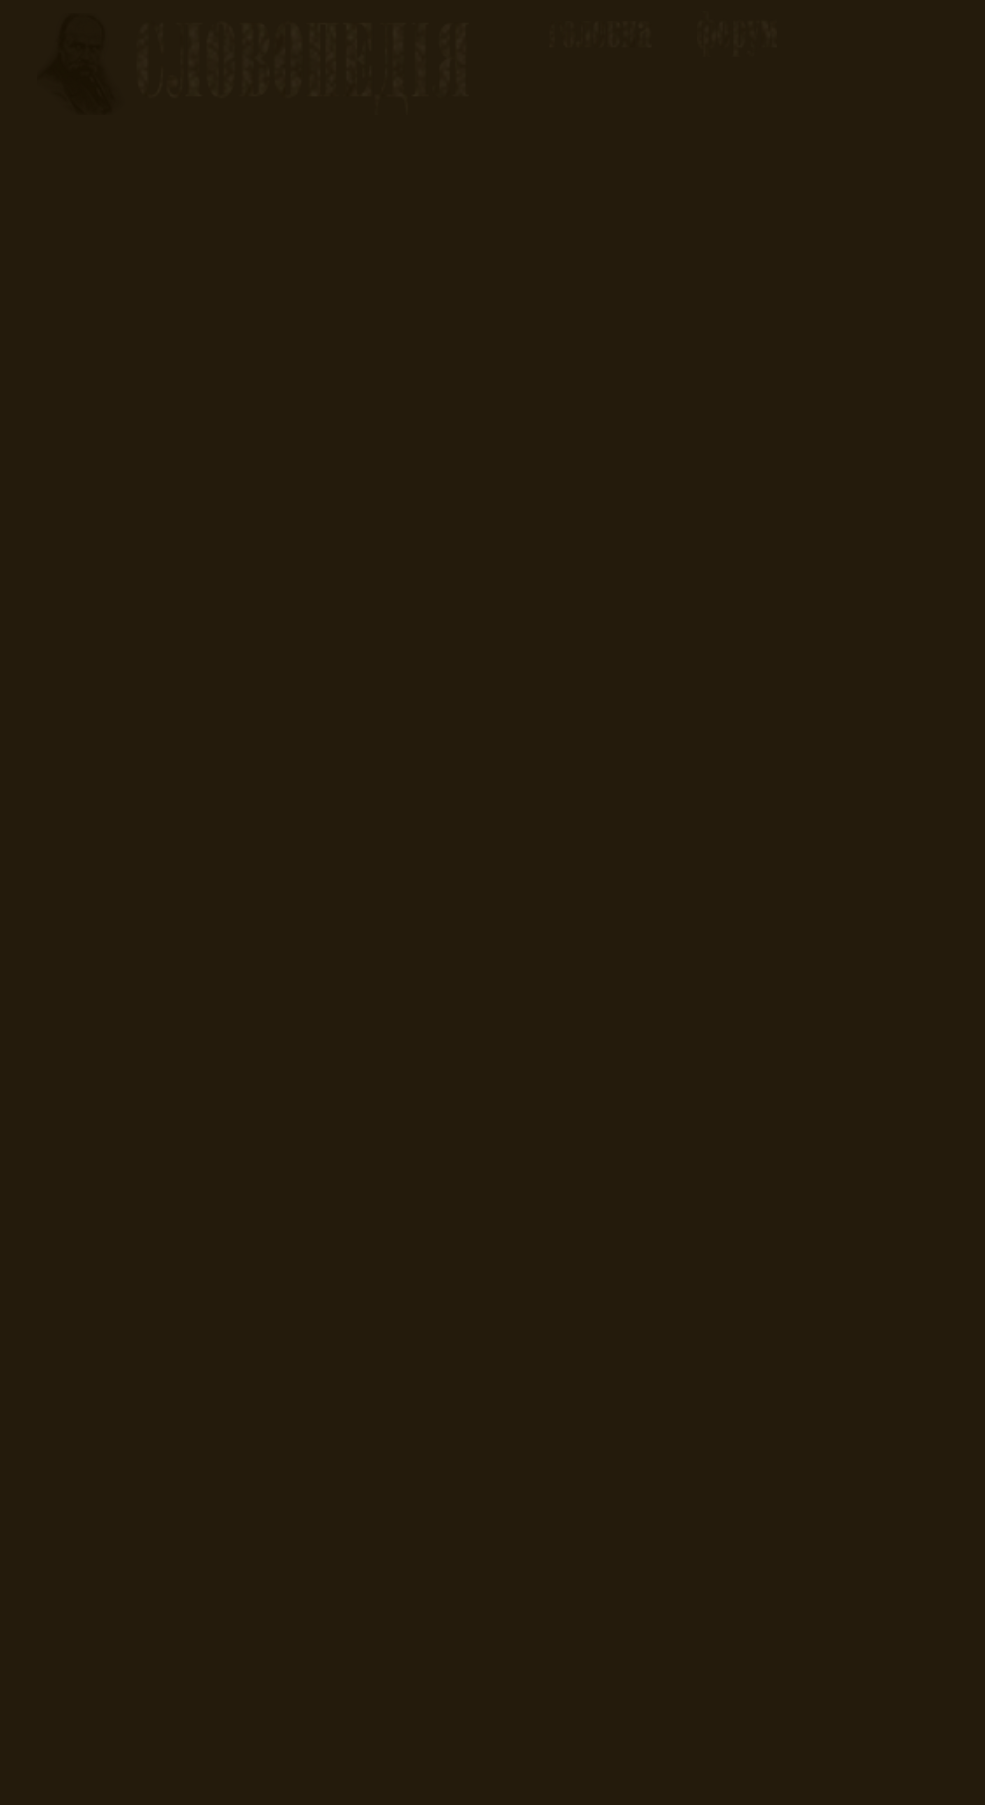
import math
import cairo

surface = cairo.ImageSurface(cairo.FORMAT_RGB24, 985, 1805)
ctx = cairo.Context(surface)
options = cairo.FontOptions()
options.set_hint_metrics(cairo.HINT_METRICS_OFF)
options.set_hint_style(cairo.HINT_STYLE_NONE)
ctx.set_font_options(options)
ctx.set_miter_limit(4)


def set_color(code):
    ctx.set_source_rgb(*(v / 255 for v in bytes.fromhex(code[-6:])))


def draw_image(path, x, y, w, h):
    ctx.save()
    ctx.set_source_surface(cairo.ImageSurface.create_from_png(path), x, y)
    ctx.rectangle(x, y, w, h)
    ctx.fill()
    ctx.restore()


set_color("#241b0c")
ctx.paint()
draw_image("assets/img1.png", 37, 13, 432, 102)
draw_image("assets/img2.png", 549, 21, 103, 27)
draw_image("assets/img3.png", 697, 11, 80, 46)
surface.write_to_png("output.png")
